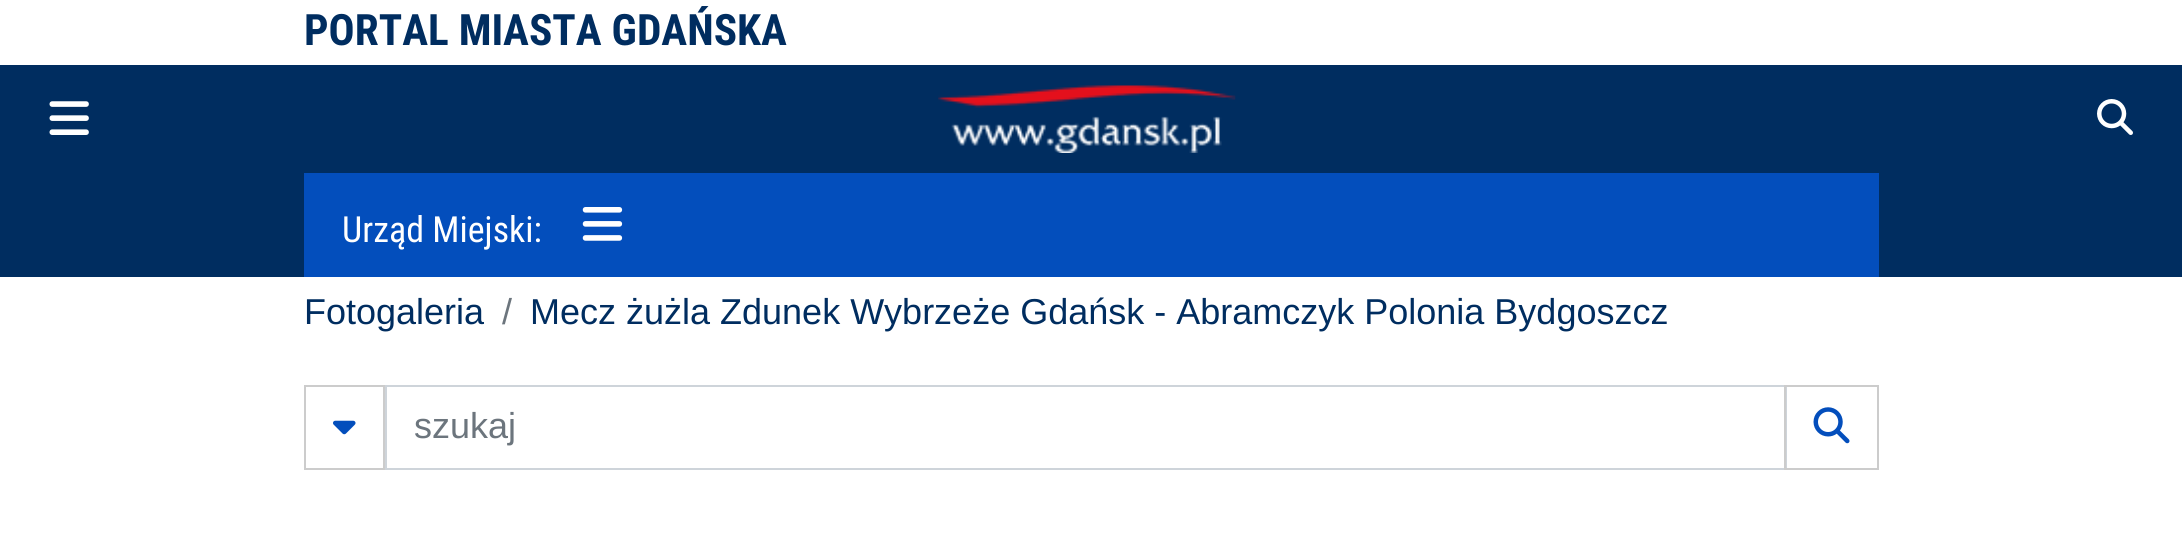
import math
import cairo

surface = cairo.ImageSurface(cairo.FORMAT_RGB24, 2182, 538)
ctx = cairo.Context(surface)
options = cairo.FontOptions()
options.set_hint_metrics(cairo.HINT_METRICS_OFF)
options.set_hint_style(cairo.HINT_STYLE_NONE)
ctx.set_font_options(options)
ctx.set_miter_limit(4)


def set_color(code):
    ctx.set_source_rgb(*(v / 255 for v in bytes.fromhex(code[-6:])))


def draw_text(x, y, s, family, size, color, bold=False, italic=False):
    ctx.select_font_face(family, cairo.FONT_SLANT_ITALIC if italic else cairo.FONT_SLANT_NORMAL, cairo.FONT_WEIGHT_BOLD if bold else cairo.FONT_WEIGHT_NORMAL)
    ctx.set_font_size(size)
    set_color(color)
    ctx.move_to(x, y)
    ctx.show_text(s)


def fill_rect(x, y, w, h, color):
    set_color(color)
    ctx.rectangle(x, y, w, h)
    ctx.fill()


def draw_image(path, x, y, w, h):
    ctx.save()
    ctx.set_source_surface(cairo.ImageSurface.create_from_png(path), x, y)
    ctx.rectangle(x, y, w, h)
    ctx.fill()
    ctx.restore()


set_color("#ffffff")
ctx.paint()
draw_text(304, 45, "PORTAL MIASTA GDAŃSKA", "Roboto Condensed", 43.25, "#002d60", bold=True)
fill_rect(0, 65, 2182, 212, "#002d60")
draw_image("assets/img1.png", 49, 101, 40, 34)
draw_image("assets/img2.png", 938, 85, 298, 68)
draw_image("assets/img3.png", 2097, 99, 36, 36)
fill_rect(304, 173, 1575, 104, "#034ebc")
draw_text(342, 242, "Urząd Miejski:", "Roboto Condensed", 36, "#ffffff")
draw_image("assets/img4.png", 582, 207, 41, 34)
draw_text(304, 324, "Fotogaleria", "Liberation Sans", 36, "#002d60")
draw_text(502, 324, "/", "Liberation Sans", 36, "#6c757d")
draw_text(530, 324, "Mecz żużla Zdunek Wybrzeże Gdańsk - Abramczyk Polonia Bydgoszcz", "Liberation Sans", 36, "#002d60")
ctx.rectangle(305, 386, 79, 83)
set_color("#cccccc")
ctx.stroke()
draw_image("assets/img5.png", 333, 420, 23, 15)
ctx.rectangle(386, 386, 1400, 83)
set_color("#ced4da")
ctx.stroke()
draw_text(414, 438, "szukaj", "Liberation Sans", 36, "#6c757d")
ctx.rectangle(1785, 386, 93, 83)
set_color("#cccccc")
ctx.stroke()
draw_image("assets/img6.png", 1813, 407, 37, 37)
surface.write_to_png("output.png")
